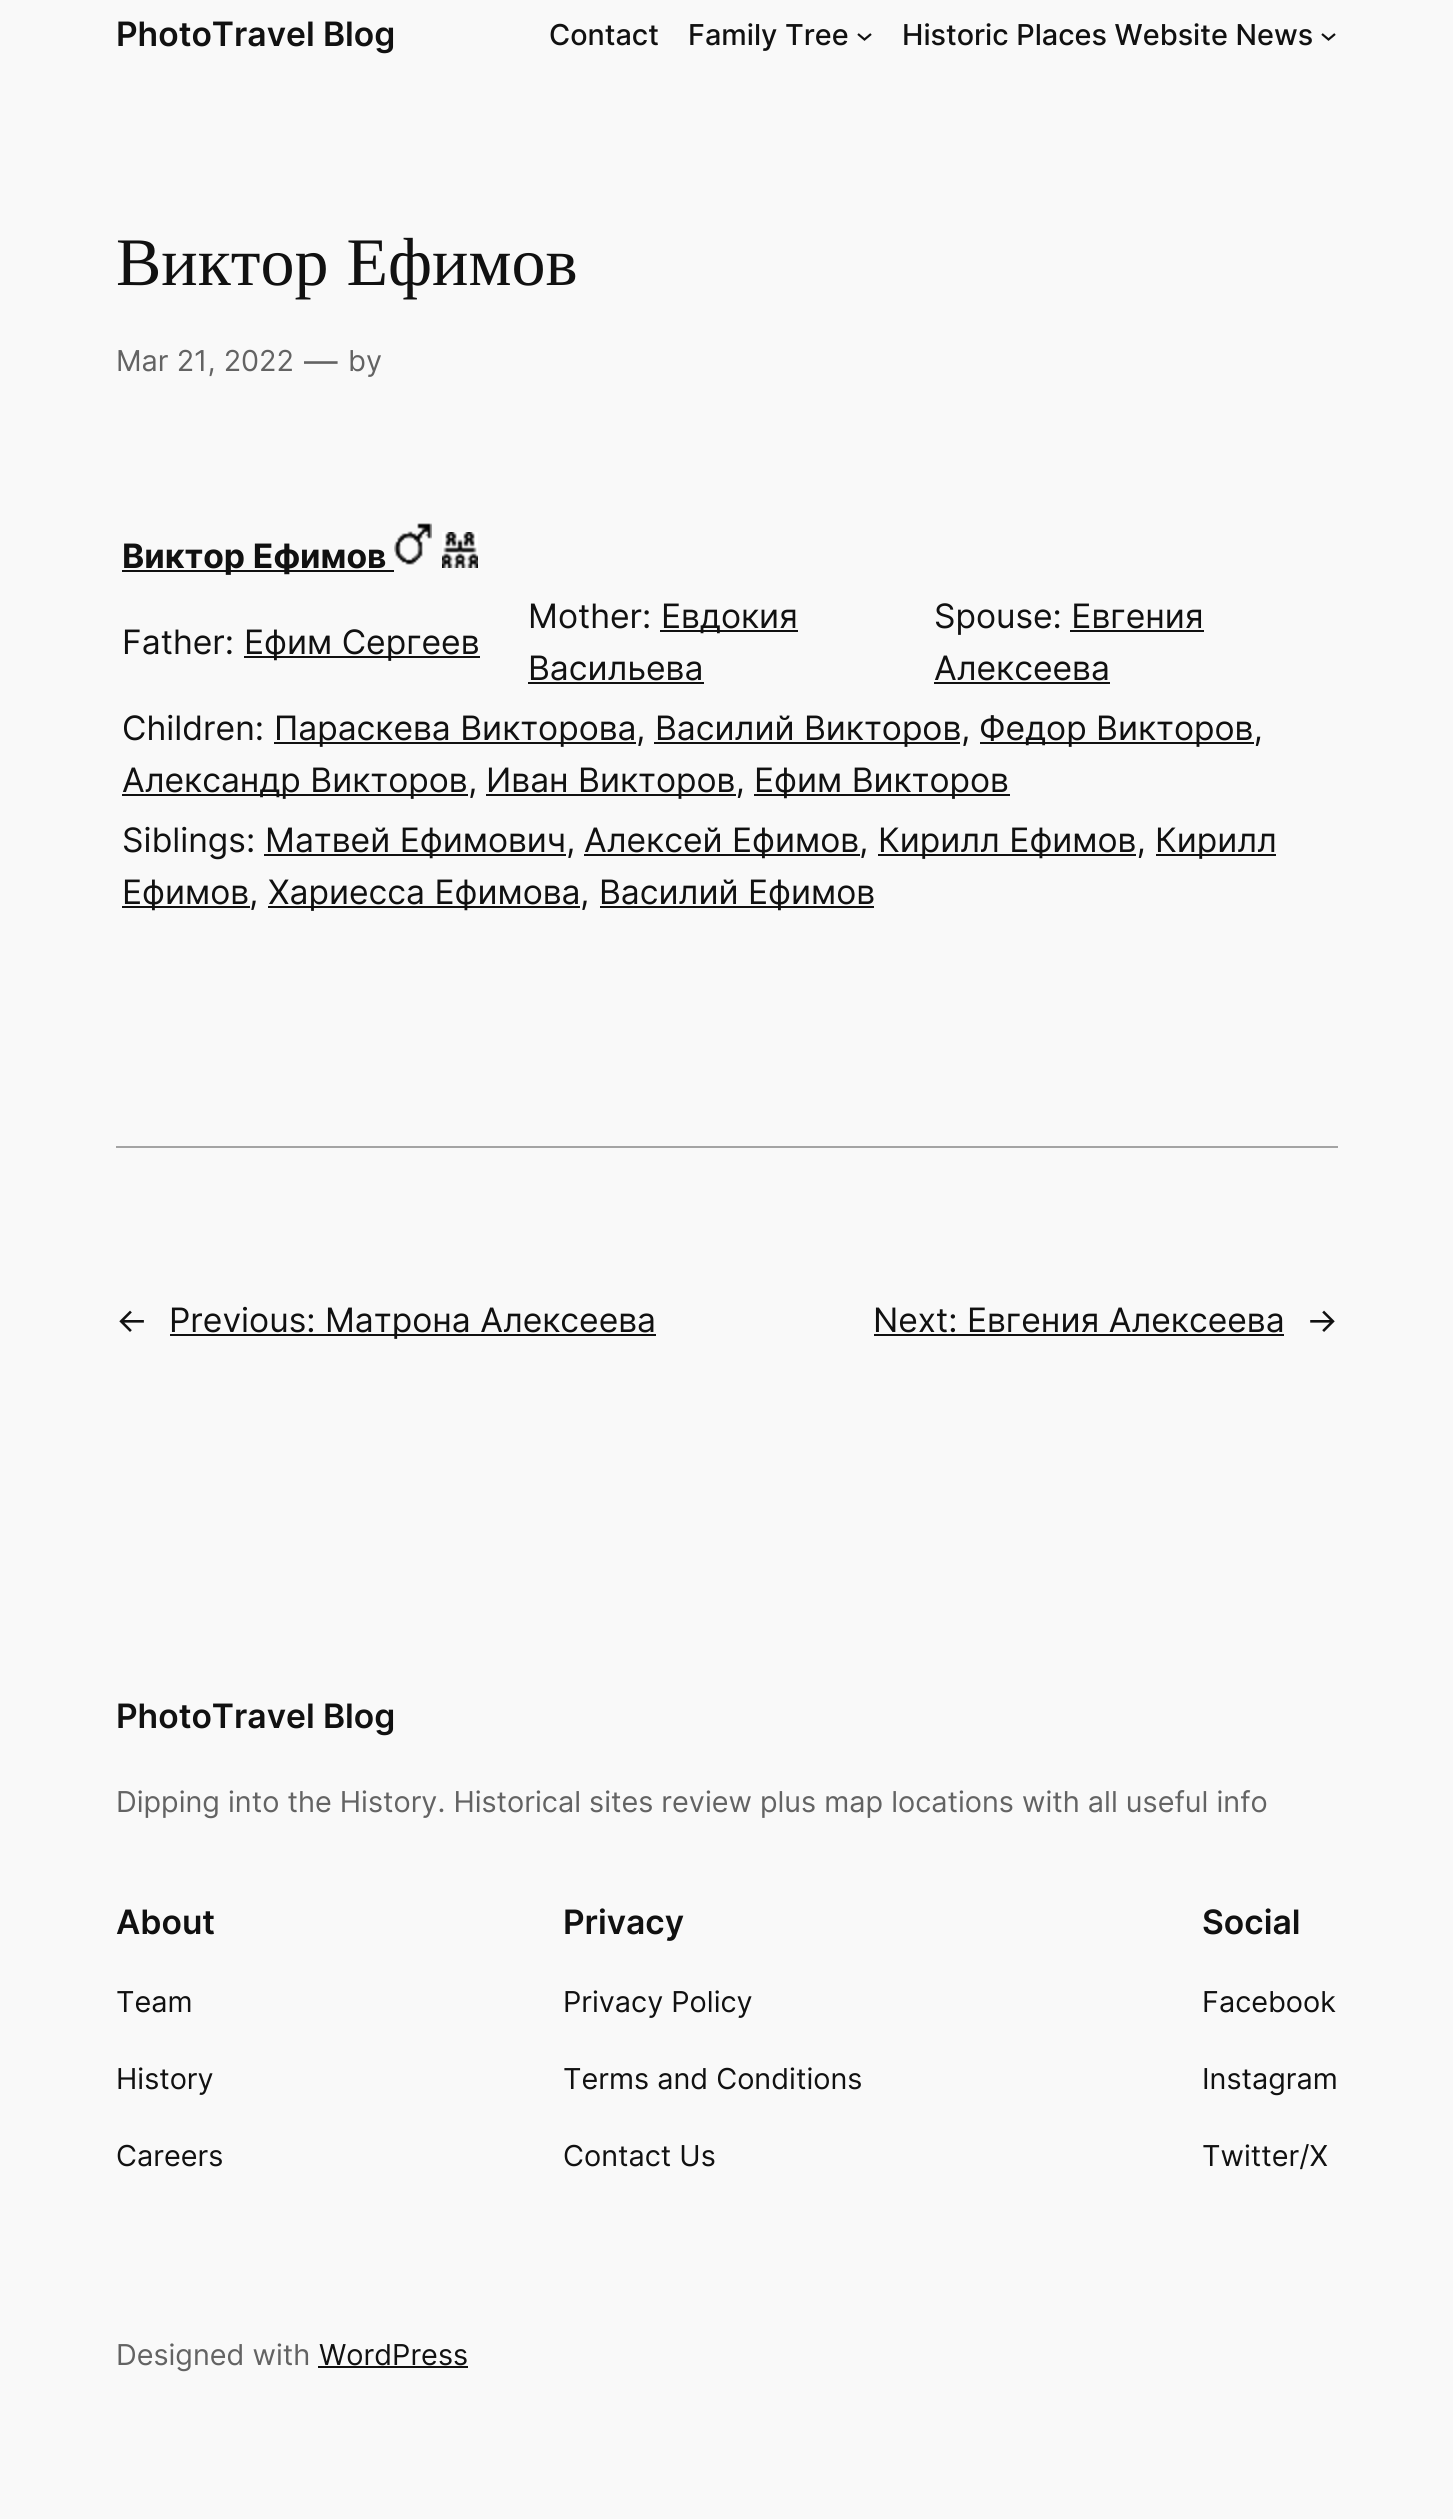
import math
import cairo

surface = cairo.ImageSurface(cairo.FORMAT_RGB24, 1453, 2519)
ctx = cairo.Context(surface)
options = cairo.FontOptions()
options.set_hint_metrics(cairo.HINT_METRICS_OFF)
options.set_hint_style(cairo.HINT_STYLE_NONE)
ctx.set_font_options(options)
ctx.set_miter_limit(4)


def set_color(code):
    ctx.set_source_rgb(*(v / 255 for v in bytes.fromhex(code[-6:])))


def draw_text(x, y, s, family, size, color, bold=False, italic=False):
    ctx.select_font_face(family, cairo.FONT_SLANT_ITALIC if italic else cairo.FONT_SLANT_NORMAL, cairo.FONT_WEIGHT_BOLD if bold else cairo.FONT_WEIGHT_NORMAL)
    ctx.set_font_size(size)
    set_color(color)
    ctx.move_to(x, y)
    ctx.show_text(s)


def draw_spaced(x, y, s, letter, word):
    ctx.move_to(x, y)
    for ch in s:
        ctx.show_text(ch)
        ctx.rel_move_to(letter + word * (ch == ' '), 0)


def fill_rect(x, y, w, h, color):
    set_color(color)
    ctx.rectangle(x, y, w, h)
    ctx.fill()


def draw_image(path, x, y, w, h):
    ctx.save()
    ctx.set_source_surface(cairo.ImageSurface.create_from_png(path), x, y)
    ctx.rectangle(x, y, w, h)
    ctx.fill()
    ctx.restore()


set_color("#f9f9f9")
ctx.paint()
draw_text(116, 46, "PhotoTravel Blog", "Inter SemiBold", 33.6, "#111111")
draw_text(549, 45, "Contact", "Inter Medium", 28.8, "#111111")
draw_text(688, 45, "Family Tree", "Inter Medium", 28.8, "#111111")
ctx.new_path()
ctx.move_to(858, 34)
ctx.line_to(864.5, 39.5)
ctx.line_to(871, 34)
ctx.set_line_width(2.2)
ctx.stroke()
draw_text(902, 45, "Historic Places Website News", "Inter Medium", 28.8, "#111111")
ctx.new_path()
ctx.move_to(1322, 34)
ctx.line_to(1328.5, 39.5)
ctx.line_to(1335, 34)
ctx.stroke()
ctx.select_font_face("Liberation Serif")
ctx.set_font_size(68)
draw_spaced(116, 285, "Виктор Ефимов", 0, 1)
draw_text(116, 371, "Mar 21, 2022", "Inter", 28.8, "#636363")
draw_text(304, 373, "—", "Inter", 33.6, "#636363")
draw_text(348, 371, "by", "Inter", 28.8, "#636363")
fill_rect(122, 570, 272, 2, "#111111")
draw_text(122, 568, "Виктор Ефимов", "Inter", 33.6, "#111111", bold=True)
draw_image("assets/img1.png", 394, 523, 38, 42)
draw_image("assets/img2.png", 442, 532, 36, 36)
draw_text(122, 654, "Father:", "Inter", 33.6, "#111111")
fill_rect(244, 656, 236, 2, "#111111")
draw_text(244, 654, "Ефим Сергеев", "Inter", 33.6, "#111111")
draw_text(528, 628, "Mother:", "Inter", 33.6, "#111111")
fill_rect(660, 630, 138, 2, "#111111")
draw_text(661, 628, "Евдокия", "Inter", 33.6, "#111111")
draw_text(528, 680, "Васильева", "Inter", 33.6, "#111111")
fill_rect(528, 682, 176, 2, "#111111")
draw_text(934, 628, "Spouse: Евгения", "Inter", 33.6, "#111111")
draw_text(934, 680, "Алексеева", "Inter", 33.6, "#111111")
fill_rect(1070, 630, 134, 2, "#111111")
fill_rect(934, 682, 176, 2, "#111111")
draw_text(122, 740, "Children:", "Inter", 33.6, "#111111")
fill_rect(274, 742, 362, 2, "#111111")
draw_text(274, 740, "Параскева Викторова", "Inter", 33.6, "#111111")
draw_text(636, 740, ",", "Inter", 33.6, "#111111")
fill_rect(654, 742, 306, 2, "#111111")
draw_text(655, 740, "Василий Викторов", "Inter", 33.6, "#111111")
draw_text(961, 740, ",", "Inter", 33.6, "#111111")
fill_rect(980, 742, 274, 2, "#111111")
draw_text(979, 740, "Федор Викторов,", "Inter", 33.6, "#111111")
fill_rect(122, 794, 346, 2, "#111111")
draw_text(122, 792, "Александр Викторов", "Inter", 33.6, "#111111")
draw_text(468, 792, ",", "Inter", 33.6, "#111111")
fill_rect(486, 794, 250, 2, "#111111")
draw_text(486, 792, "Иван Викторов,", "Inter", 33.6, "#111111")
fill_rect(754, 794, 256, 2, "#111111")
draw_text(754, 792, "Ефим Викторов", "Inter", 33.6, "#111111")
draw_text(122, 852, "Siblings:", "Inter", 33.6, "#111111")
fill_rect(264, 854, 302, 2, "#111111")
draw_text(265, 852, "Матвей Ефимович", "Inter", 33.6, "#111111")
draw_text(566, 852, ",", "Inter", 33.6, "#111111")
fill_rect(584, 854, 276, 2, "#111111")
draw_text(584, 852, "Алексей Ефимов", "Inter", 33.6, "#111111")
draw_text(859, 852, ",", "Inter", 33.6, "#111111")
fill_rect(878, 854, 258, 2, "#111111")
draw_text(878, 852, "Кирилл Ефимов,", "Inter", 33.6, "#111111")
fill_rect(1156, 854, 120, 2, "#111111")
draw_text(1155, 852, "Кирилл", "Inter", 33.6, "#111111")
fill_rect(122, 906, 128, 2, "#111111")
draw_text(122, 904, "Ефимов,", "Inter", 33.6, "#111111")
fill_rect(268, 906, 312, 2, "#111111")
draw_text(268, 904, "Хариесса Ефимова", "Inter", 33.6, "#111111")
draw_text(580, 904, ",", "Inter", 33.6, "#111111")
fill_rect(600, 906, 274, 2, "#111111")
draw_text(599, 904, "Василий Ефимов", "Inter", 33.6, "#111111")
fill_rect(116, 1146, 1222, 2, "#a4a4a4")
draw_text(116, 1332, "←", "Inter", 33.6, "#111111")
fill_rect(170, 1334, 486, 2, "#111111")
draw_text(169, 1332, "Previous: Матрона Алексеева", "Inter", 33.6, "#111111")
draw_text(873, 1332, "Next: Евгения Алексеева", "Inter", 33.6, "#111111")
fill_rect(874, 1334, 410, 2, "#111111")
draw_text(1306, 1332, "→", "Inter", 33.6, "#111111")
draw_text(116, 1728, "PhotoTravel Blog", "Inter SemiBold", 33.6, "#111111")
draw_text(116, 1812, "Dipping into the History. Historical sites review plus map locations with all useful info", "Inter", 28.8, "#636363")
draw_text(116, 1934, "About", "Inter SemiBold", 33.6, "#111111")
draw_text(116, 2012, "Team", "Inter", 28.8, "#111111")
draw_text(116, 2089, "History", "Inter", 28.8, "#111111")
draw_text(116, 2166, "Careers", "Inter", 28.8, "#111111")
draw_text(563, 1934, "Privacy", "Inter SemiBold", 33.6, "#111111")
draw_text(563, 2012, "Privacy Policy", "Inter", 28.8, "#111111")
draw_text(563, 2089, "Terms and Conditions", "Inter", 28.8, "#111111")
draw_text(563, 2166, "Contact Us", "Inter", 28.8, "#111111")
draw_text(1202, 1934, "Social", "Inter SemiBold", 33.6, "#111111")
draw_text(1202, 2012, "Facebook", "Inter", 28.8, "#111111")
draw_text(1202, 2089, "Instagram", "Inter", 28.8, "#111111")
draw_text(1202, 2166, "Twitter/X", "Inter", 28.8, "#111111")
draw_text(116, 2365, "Designed with", "Inter", 28.8, "#636363")
draw_text(319, 2365, "WordPress", "Inter", 28.8, "#111111")
fill_rect(318, 2366, 150, 2, "#111111")
surface.write_to_png("output.png")
